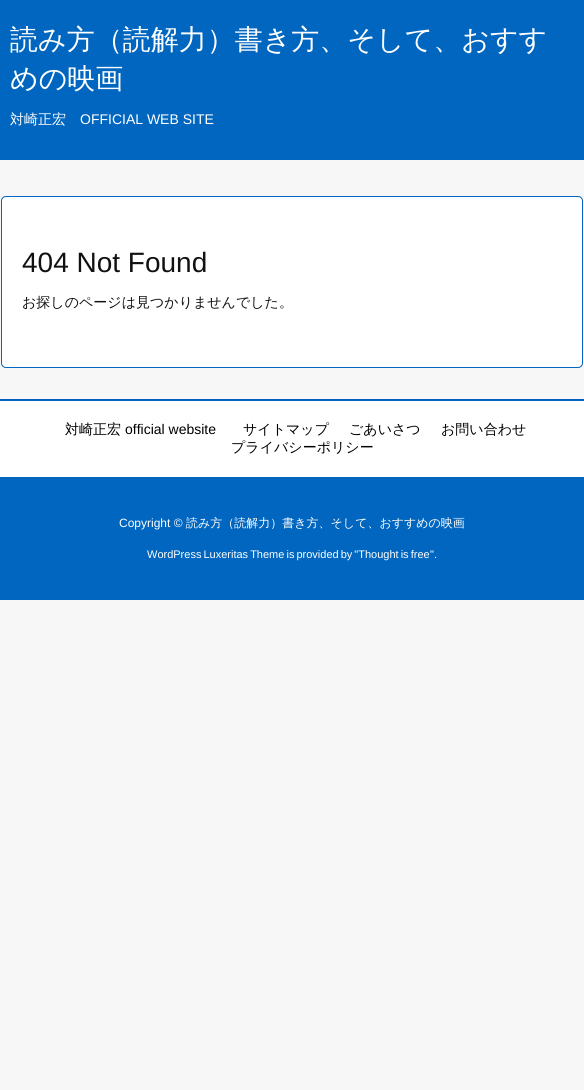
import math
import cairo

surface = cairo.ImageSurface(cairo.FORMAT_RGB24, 584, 1090)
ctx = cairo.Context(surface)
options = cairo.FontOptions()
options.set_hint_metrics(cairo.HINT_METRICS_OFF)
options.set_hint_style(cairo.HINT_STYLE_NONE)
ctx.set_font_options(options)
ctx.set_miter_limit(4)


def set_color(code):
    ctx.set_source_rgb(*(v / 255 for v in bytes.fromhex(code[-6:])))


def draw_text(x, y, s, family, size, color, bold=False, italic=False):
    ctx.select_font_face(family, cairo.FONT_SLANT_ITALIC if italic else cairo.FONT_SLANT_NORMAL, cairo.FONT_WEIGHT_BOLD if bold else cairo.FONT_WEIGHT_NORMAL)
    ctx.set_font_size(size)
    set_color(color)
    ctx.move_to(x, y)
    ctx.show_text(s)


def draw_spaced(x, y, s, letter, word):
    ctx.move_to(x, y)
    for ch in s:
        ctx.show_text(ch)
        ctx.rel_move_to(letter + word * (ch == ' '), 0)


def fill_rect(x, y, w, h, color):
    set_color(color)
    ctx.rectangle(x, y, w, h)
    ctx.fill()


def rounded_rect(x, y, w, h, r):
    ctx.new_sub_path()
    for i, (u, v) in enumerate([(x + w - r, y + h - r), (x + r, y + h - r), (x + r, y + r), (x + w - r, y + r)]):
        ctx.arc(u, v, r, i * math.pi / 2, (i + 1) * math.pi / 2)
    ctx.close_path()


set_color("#f7f7f7")
ctx.paint()
fill_rect(0, 0, 584, 160, "#0066bf")
draw_text(10, 49, "読み方（読解力）書き方、そして、おすす", "WenQuanYi Zen Hei Medium", 28, "#ffffff")
draw_text(10, 88, "めの映画", "WenQuanYi Zen Hei Medium", 28, "#ffffff")
draw_text(10, 124, "対崎正宏", "WenQuanYi Zen Hei Medium", 14, "#ffffff")
draw_text(80, 124, "OFFICIAL WEB SITE", "Liberation Sans", 14, "#ffffff")
rounded_rect(1.5, 196.5, 581, 171, 4.5)
ctx.fill_preserve()
set_color("#0066bf")
ctx.set_line_width(1)
ctx.stroke()
draw_text(22, 272, "404 Not Found", "Liberation Sans", 28, "#111111")
draw_text(22, 307, "お探しのページは見つかりませんでした。", "WenQuanYi Zen Hei Medium", 14, "#111111")
fill_rect(0, 401, 584, 76, "#ffffff")
fill_rect(0, 399, 584, 1, "#005fbf")
fill_rect(0, 400, 584, 1, "#0066bf")
draw_text(65, 434, "対崎正宏", "WenQuanYi Zen Hei Medium", 14, "#000000")
draw_text(125, 434, "official website", "Liberation Sans", 14, "#000000")
draw_text(243, 434, "サイトマップ", "WenQuanYi Zen Hei Medium", 14, "#000000")
draw_text(349, 434, "ごあいさつ", "WenQuanYi Zen Hei Medium", 14, "#000000")
draw_text(441, 434, "お問い合わせ", "WenQuanYi Zen Hei Medium", 14, "#000000")
draw_text(231, 452, "プライバシーポリシー", "WenQuanYi Zen Hei Medium", 14, "#000000")
fill_rect(0, 477, 584, 123, "#0066bf")
draw_text(119, 527, "Copyright ©", "Liberation Sans", 12, "#ffffff")
draw_text(186, 527, "読み方（読解力）書き方、そして、おすすめの映画", "WenQuanYi Zen Hei Medium", 12, "#ffffff")
ctx.select_font_face("Liberation Sans")
ctx.set_font_size(11)
draw_spaced(147, 558, "WordPress Luxeritas Theme is provided by \"Thought is free", 0, -1)
draw_text(430, 558, "\".", "Liberation Sans", 11, "#ffffff")
surface.write_to_png("output.png")
